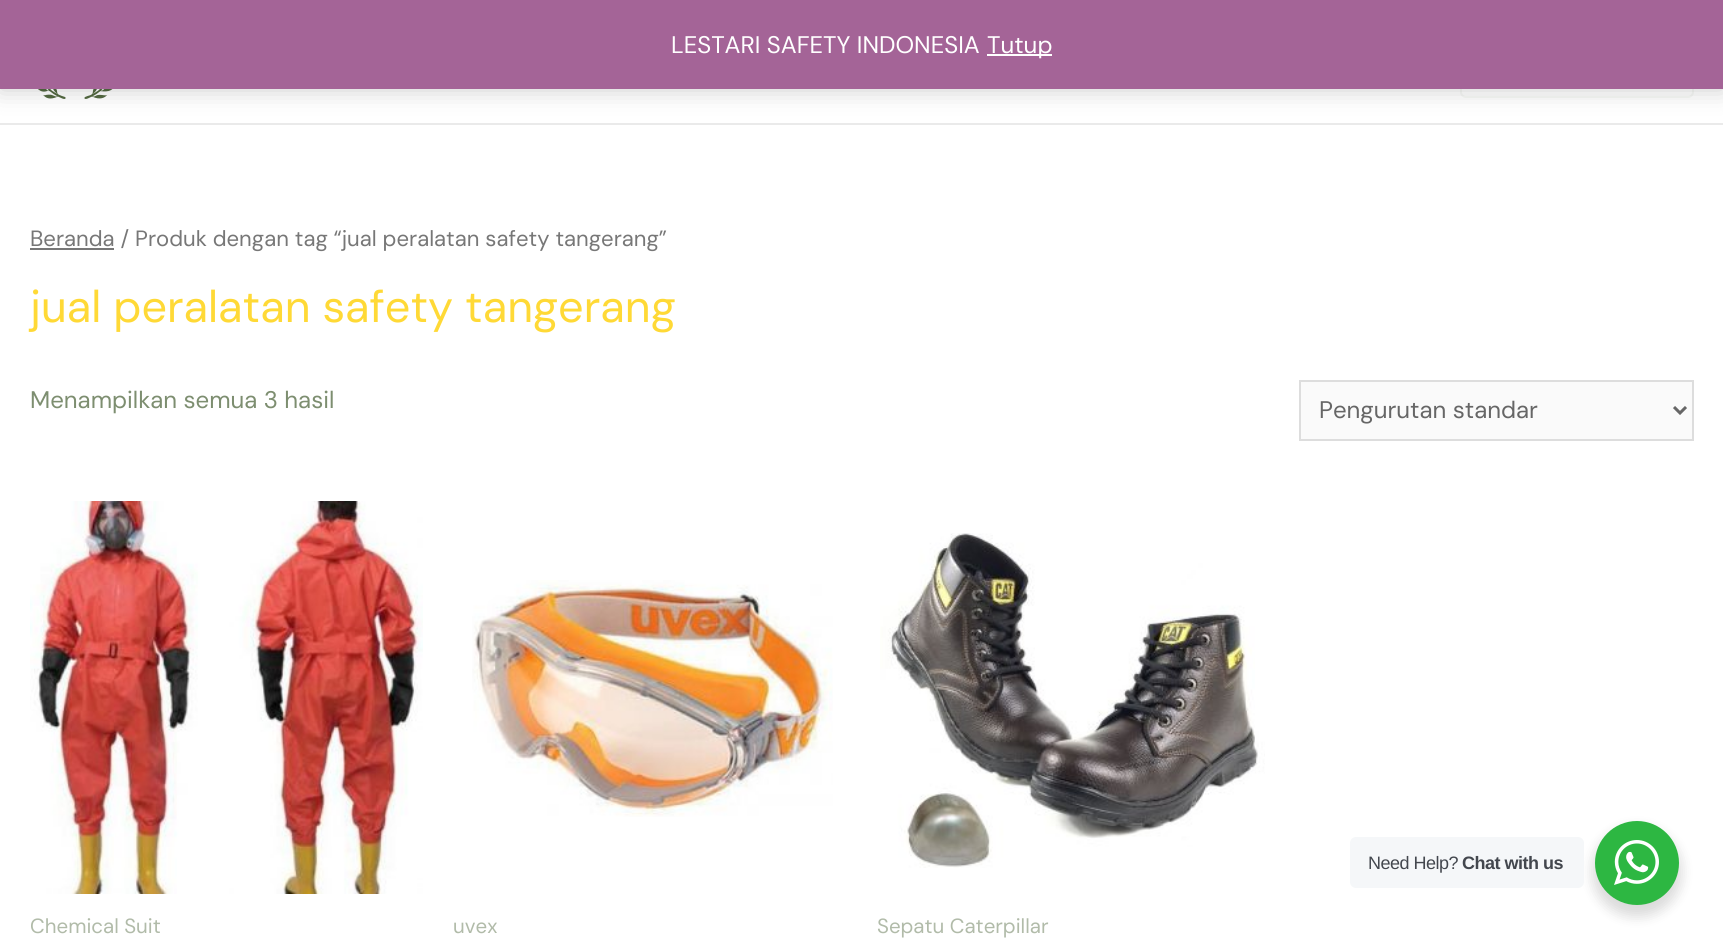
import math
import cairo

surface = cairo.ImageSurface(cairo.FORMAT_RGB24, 1723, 949)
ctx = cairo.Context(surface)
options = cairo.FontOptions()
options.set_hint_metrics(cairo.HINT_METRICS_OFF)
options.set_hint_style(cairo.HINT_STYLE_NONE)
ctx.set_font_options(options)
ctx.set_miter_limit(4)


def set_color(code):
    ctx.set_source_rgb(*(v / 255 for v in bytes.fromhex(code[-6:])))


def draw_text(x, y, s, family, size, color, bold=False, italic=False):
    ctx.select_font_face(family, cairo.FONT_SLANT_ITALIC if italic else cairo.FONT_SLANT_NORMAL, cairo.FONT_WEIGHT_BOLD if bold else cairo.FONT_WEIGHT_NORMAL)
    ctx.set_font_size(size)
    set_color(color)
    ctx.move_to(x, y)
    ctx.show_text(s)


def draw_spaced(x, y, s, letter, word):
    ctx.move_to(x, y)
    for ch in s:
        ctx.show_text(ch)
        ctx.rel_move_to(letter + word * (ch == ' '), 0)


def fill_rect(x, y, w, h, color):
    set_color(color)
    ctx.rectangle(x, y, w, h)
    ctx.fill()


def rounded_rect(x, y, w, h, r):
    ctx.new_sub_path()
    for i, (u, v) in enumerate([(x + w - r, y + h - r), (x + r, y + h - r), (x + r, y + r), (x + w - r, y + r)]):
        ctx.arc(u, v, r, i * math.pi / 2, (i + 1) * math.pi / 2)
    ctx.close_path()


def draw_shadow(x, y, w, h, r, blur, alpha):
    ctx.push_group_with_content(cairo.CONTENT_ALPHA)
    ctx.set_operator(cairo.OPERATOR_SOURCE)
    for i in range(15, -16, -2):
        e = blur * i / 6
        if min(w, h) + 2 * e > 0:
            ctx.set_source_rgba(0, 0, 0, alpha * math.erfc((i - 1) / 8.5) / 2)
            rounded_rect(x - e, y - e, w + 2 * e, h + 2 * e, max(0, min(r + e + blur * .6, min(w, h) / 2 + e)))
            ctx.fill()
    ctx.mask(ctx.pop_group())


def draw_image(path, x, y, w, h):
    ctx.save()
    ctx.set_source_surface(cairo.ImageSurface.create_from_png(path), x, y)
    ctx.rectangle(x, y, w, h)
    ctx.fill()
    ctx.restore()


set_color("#ffffff")
ctx.paint()
fill_rect(0, 123, 1723, 2, "#eaeaea")
draw_image("assets/img1.png", 38, 89, 75, 10)
rounded_rect(1461, 28, 232, 69, 5)
set_color("#f6f8f5")
ctx.stroke()
set_color("#000000")
draw_shadow(0, 2, 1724, 88, 0, 12, 0.2)
fill_rect(0, 0, 1723, 89, "#a46497")
draw_text(671, 53, "LESTARI SAFETY INDONESIA", "DM Sans", 24, "#ffffff")
fill_rect(987, 54, 65, 2, "#ffffff")
draw_text(987, 53, "Tutup", "DM Sans", 24, "#ffffff")
fill_rect(30, 248, 84, 2, "#777777")
draw_text(30, 246, "Beranda / Produk dengan tag “jual peralatan safety tangerang”", "DM Sans", 22.1, "#777777")
draw_text(30, 322, "jual peralatan safety tangerang", "DM Sans", 45, "#ffd936")
draw_text(30, 408, "Menampilkan semua 3 hasil", "DM Sans", 24, "#7d8e70")
set_color("#fafafa")
ctx.rectangle(1300, 381, 393, 59)
ctx.fill_preserve()
set_color("#dddddd")
ctx.stroke()
ctx.new_path()
ctx.move_to(1674, 407)
ctx.line_to(1680, 413)
ctx.line_to(1686, 407)
set_color("#666666")
ctx.set_line_width(3)
ctx.stroke()
draw_text(1319, 418, "Pengurutan standar", "DM Sans", 24, "#666666")
draw_image("assets/img2.png", 30, 501, 393, 393)
draw_text(30, 933, "Chemical Suit", "DM Sans", 20.5, "#b1bba9")
draw_image("assets/img3.png", 472, 580, 361, 237)
draw_text(453, 933, "uvex", "DM Sans", 20.5, "#b1bba9")
draw_image("assets/img4.png", 880, 533, 385, 335)
draw_text(877, 933, "Sepatu Caterpillar", "DM Sans", 20.5, "#b1bba9")
set_color("#000000")
draw_shadow(1592, 827, 90, 90, 45, 6, 0.14)
set_color("#f5f7f9")
rounded_rect(1350, 837, 234, 51, 6)
ctx.fill()
ctx.select_font_face("Liberation Sans")
ctx.set_font_size(18)
set_color("#43474e")
draw_spaced(1368, 869, "Need Help?", -0.5, 0)
ctx.select_font_face("Liberation Sans", cairo.FONT_SLANT_NORMAL, cairo.FONT_WEIGHT_BOLD)
draw_spaced(1462, 869, "Chat with us", -0.5, 0)
set_color("#2db742")
ctx.new_path()
ctx.arc(1637, 863, 42, 0, 2 * math.pi)
ctx.fill()
draw_image("assets/img5.png", 1614, 840, 45, 45)
surface.write_to_png("output.png")
